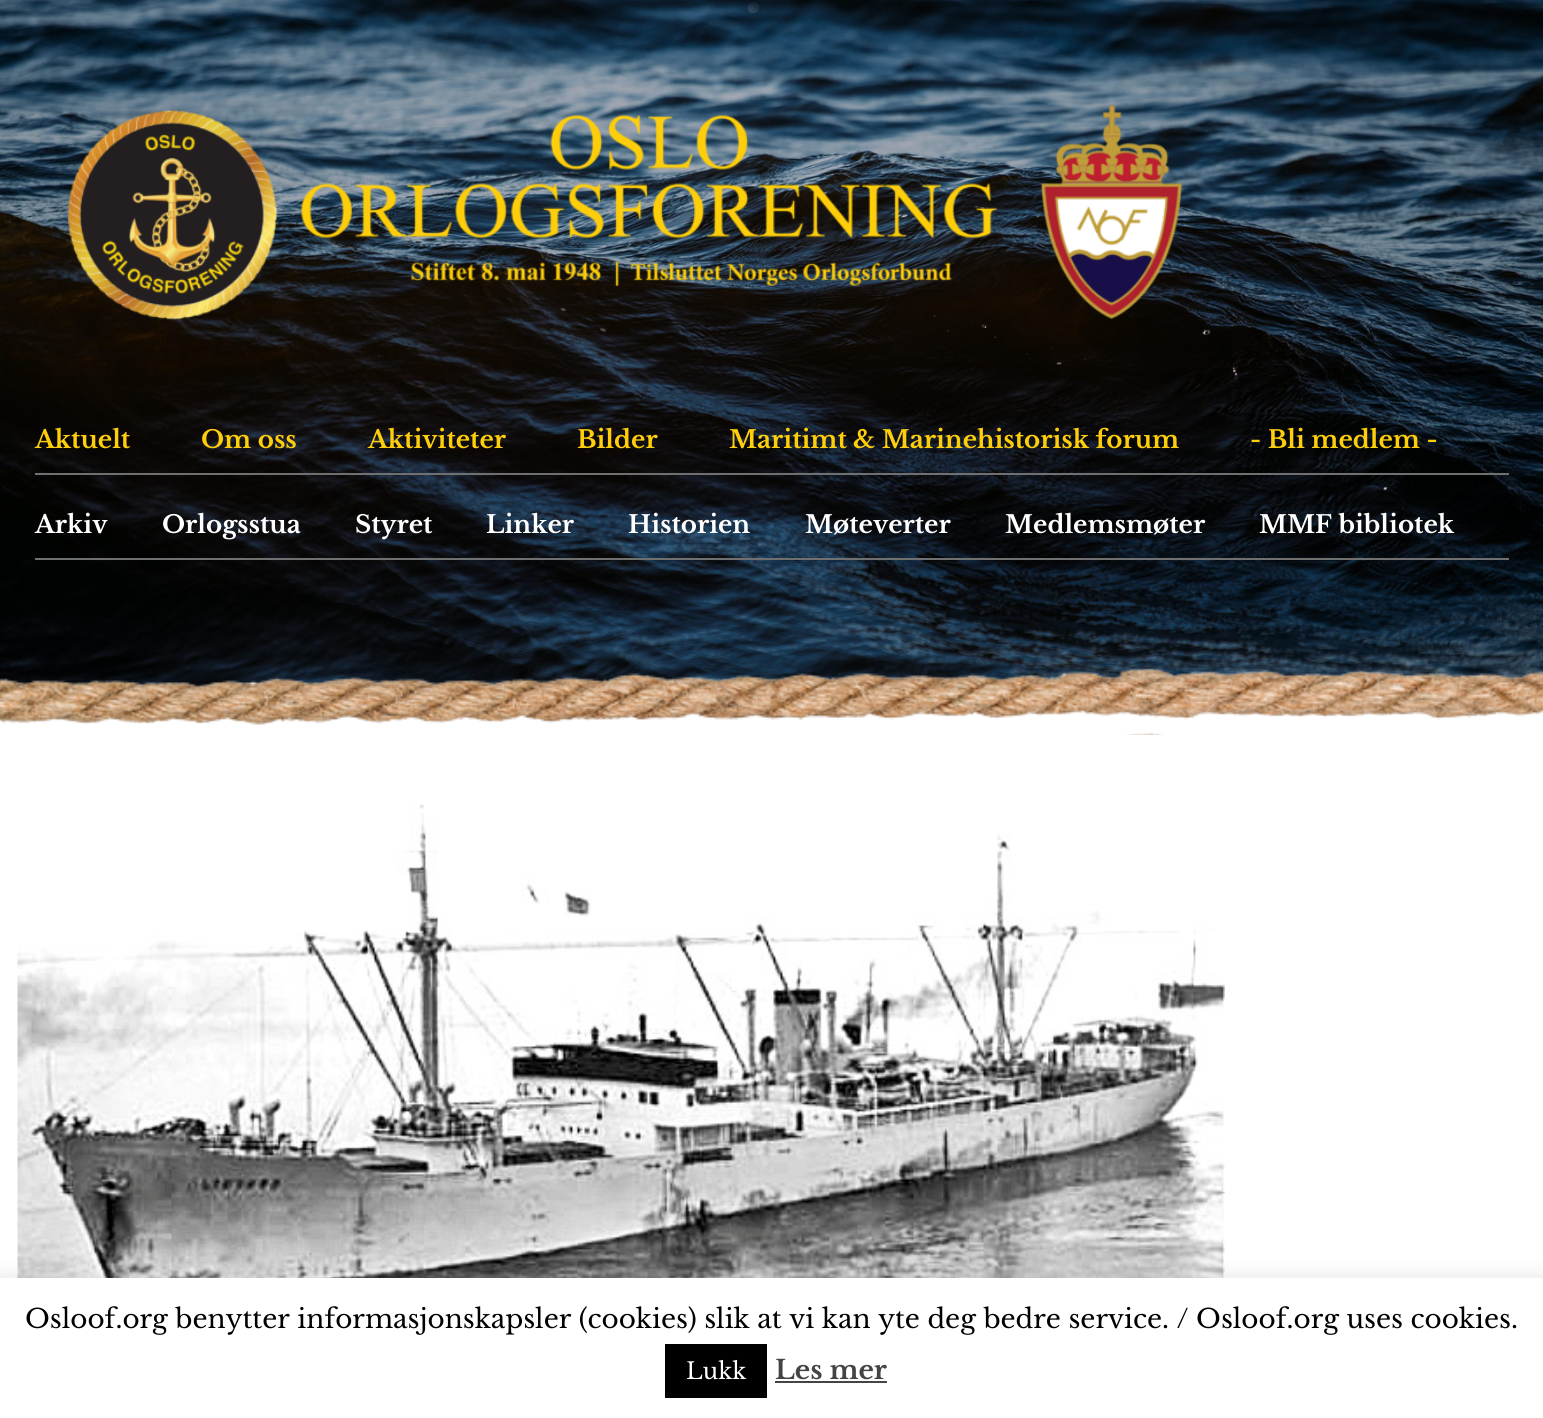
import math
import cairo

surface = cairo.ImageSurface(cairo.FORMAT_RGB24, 1543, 1418)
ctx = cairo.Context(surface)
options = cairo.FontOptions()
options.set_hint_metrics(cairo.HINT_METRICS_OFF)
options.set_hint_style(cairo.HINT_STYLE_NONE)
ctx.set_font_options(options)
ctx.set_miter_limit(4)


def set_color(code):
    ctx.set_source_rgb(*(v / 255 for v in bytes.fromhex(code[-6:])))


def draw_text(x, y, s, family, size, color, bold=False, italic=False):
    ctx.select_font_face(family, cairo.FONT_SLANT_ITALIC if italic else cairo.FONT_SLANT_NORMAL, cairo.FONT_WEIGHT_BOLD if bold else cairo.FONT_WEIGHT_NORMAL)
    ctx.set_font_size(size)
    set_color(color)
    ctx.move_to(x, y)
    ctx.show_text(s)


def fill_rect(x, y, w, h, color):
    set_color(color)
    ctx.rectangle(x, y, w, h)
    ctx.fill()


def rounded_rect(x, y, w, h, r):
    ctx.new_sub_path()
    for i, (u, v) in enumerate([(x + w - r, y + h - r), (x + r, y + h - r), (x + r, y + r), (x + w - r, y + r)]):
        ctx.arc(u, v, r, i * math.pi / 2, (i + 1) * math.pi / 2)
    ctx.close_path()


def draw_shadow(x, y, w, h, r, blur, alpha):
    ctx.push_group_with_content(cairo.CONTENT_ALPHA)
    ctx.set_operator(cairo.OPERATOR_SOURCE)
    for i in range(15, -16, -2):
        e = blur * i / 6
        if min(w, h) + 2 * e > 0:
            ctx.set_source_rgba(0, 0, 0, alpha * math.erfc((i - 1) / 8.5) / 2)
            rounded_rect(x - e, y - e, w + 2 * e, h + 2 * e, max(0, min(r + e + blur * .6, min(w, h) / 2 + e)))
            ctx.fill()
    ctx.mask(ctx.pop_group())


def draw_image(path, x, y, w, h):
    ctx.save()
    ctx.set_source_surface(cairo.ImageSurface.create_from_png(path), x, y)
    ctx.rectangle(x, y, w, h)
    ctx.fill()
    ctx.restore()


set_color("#ffffff")
ctx.paint()
draw_image("assets/img1.png", 0, 0, 1543, 689)
draw_image("assets/img2.png", 67, 104, 1116, 216)
fill_rect(35, 473, 1474, 2, "#707070")
draw_text(35, 448, "Aktuelt", "Libre Baskerville", 24.5, "#fece0b", bold=True)
draw_text(201, 448, "Om oss", "Libre Baskerville", 24.5, "#fece0b", bold=True)
draw_text(368, 448, "Aktiviteter", "Libre Baskerville", 24.5, "#fece0b", bold=True)
draw_text(577, 448, "Bilder", "Libre Baskerville", 24.5, "#fece0b", bold=True)
draw_text(729, 448, "Maritimt & Marinehistorisk forum", "Libre Baskerville", 24.5, "#fece0b", bold=True)
draw_text(1250, 448, "- Bli medlem -", "Libre Baskerville", 24.5, "#fece0b", bold=True)
fill_rect(35, 558, 1474, 2, "#707070")
draw_text(35, 533, "Arkiv", "Libre Baskerville", 24.5, "#ffffff", bold=True)
draw_text(162, 533, "Orlogsstua", "Libre Baskerville", 24.5, "#ffffff", bold=True)
draw_text(355, 533, "Styret", "Libre Baskerville", 24.5, "#ffffff", bold=True)
draw_text(486, 533, "Linker", "Libre Baskerville", 24.5, "#ffffff", bold=True)
draw_text(628, 533, "Historien", "Libre Baskerville", 24.5, "#ffffff", bold=True)
draw_text(805, 533, "Møteverter", "Libre Baskerville", 24.5, "#ffffff", bold=True)
draw_text(1005, 533, "Medlemsmøter", "Libre Baskerville", 24.5, "#ffffff", bold=True)
draw_text(1259, 533, "MMF bibliotek", "Libre Baskerville", 24.5, "#ffffff", bold=True)
draw_image("assets/img3.png", 0, 668, 1543, 67)
draw_image("assets/img4.png", 17, 804, 1208, 474)
set_color("#acabab")
draw_shadow(0, 1276, 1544, 142, 0, 9, 0.3)
fill_rect(0, 1278, 1543, 140, "#ffffff")
draw_text(25, 1328, "Osloof.org benytter informasjonskapsler (cookies) slik at vi kan yte deg bedre service. / Osloof.org uses cookies.", "Libre Baskerville", 26.25, "#000000")
fill_rect(665, 1344, 102, 54, "#000000")
draw_text(686, 1379, "Lukk", "Libre Baskerville", 23, "#ffffff")
draw_text(775, 1379, "Les mer", "Libre Baskerville", 26.25, "#444444", bold=True)
fill_rect(775, 1381, 112, 2, "#444444")
surface.write_to_png("output.png")
